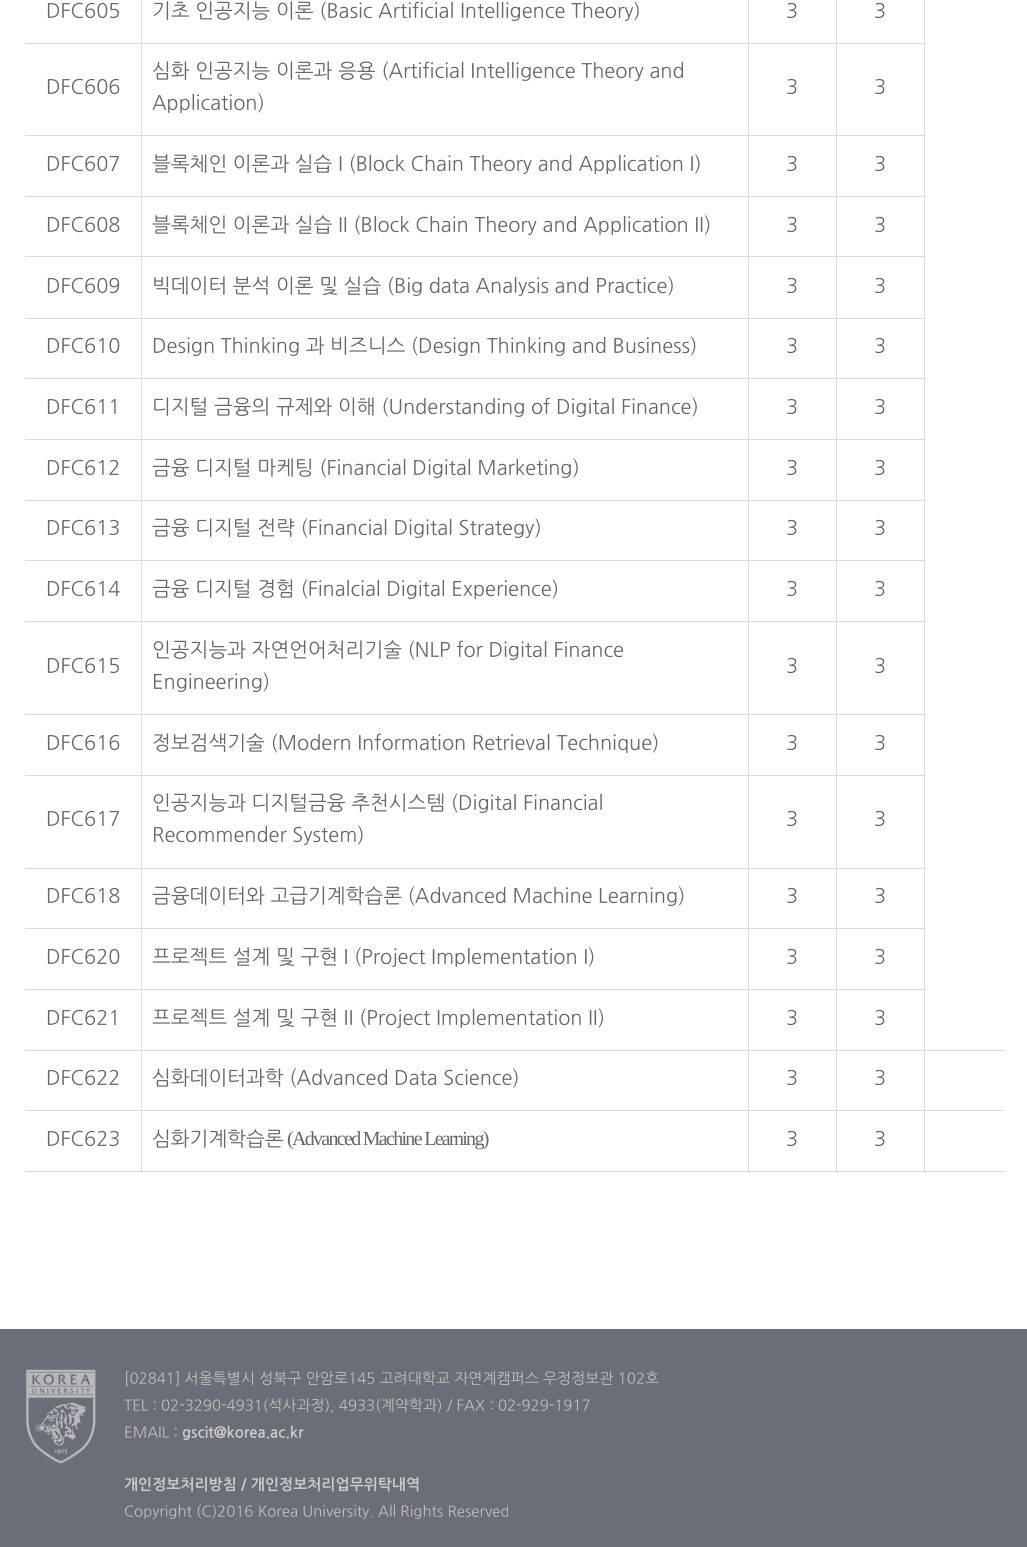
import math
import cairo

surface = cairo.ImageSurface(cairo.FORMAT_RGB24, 1027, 1547)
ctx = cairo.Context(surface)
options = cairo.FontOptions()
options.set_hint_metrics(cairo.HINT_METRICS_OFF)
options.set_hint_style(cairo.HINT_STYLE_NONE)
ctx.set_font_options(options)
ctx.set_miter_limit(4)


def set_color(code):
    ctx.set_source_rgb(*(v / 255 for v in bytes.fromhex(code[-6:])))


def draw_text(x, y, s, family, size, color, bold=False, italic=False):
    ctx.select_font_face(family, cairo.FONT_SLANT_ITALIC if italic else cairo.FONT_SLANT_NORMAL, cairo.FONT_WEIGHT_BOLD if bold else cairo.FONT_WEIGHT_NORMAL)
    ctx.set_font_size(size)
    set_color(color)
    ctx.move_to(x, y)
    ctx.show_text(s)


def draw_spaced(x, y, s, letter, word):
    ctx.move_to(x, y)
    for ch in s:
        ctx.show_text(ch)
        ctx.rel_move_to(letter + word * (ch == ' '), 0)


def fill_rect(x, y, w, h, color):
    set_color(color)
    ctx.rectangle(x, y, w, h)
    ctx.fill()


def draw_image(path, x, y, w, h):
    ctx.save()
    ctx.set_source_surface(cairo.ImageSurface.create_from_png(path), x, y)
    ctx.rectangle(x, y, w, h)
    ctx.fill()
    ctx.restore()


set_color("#ffffff")
ctx.paint()
fill_rect(924, 1171, 80, 1, "#dadada")
fill_rect(924, 1110, 1, 63, "#dadada")
fill_rect(924, 1110, 80, 1, "#dadada")
fill_rect(924, 1050, 1, 61, "#dadada")
fill_rect(836, 1171, 89, 1, "#dadada")
fill_rect(836, 1110, 1, 63, "#dadada")
fill_rect(836, 1110, 89, 1, "#dadada")
fill_rect(836, 1050, 1, 61, "#dadada")
fill_rect(836, 1050, 168, 1, "#dadada")
fill_rect(836, 989, 1, 62, "#dadada")
fill_rect(836, 989, 89, 1, "#dadada")
fill_rect(836, 928, 1, 62, "#dadada")
fill_rect(836, 928, 89, 1, "#dadada")
fill_rect(836, 868, 1, 61, "#dadada")
fill_rect(836, 868, 89, 1, "#dadada")
fill_rect(836, 775, 1, 94, "#dadada")
fill_rect(836, 775, 89, 1, "#dadada")
fill_rect(836, 714, 1, 62, "#dadada")
fill_rect(836, 714, 89, 1, "#dadada")
fill_rect(836, 621, 1, 94, "#dadada")
fill_rect(836, 621, 89, 1, "#dadada")
fill_rect(836, 560, 1, 63, "#dadada")
fill_rect(836, 560, 89, 1, "#dadada")
fill_rect(836, 500, 1, 61, "#dadada")
fill_rect(836, 500, 89, 1, "#dadada")
fill_rect(836, 439, 1, 62, "#dadada")
fill_rect(836, 439, 89, 1, "#dadada")
fill_rect(836, 378, 1, 62, "#dadada")
fill_rect(836, 378, 89, 1, "#dadada")
fill_rect(836, 318, 1, 61, "#dadada")
fill_rect(836, 318, 89, 1, "#dadada")
fill_rect(836, 256, 1, 63, "#dadada")
fill_rect(836, 256, 89, 1, "#dadada")
fill_rect(836, 196, 1, 62, "#dadada")
fill_rect(836, 196, 89, 1, "#dadada")
fill_rect(836, 135, 1, 63, "#dadada")
fill_rect(836, 135, 89, 1, "#dadada")
fill_rect(836, 43, 1, 93, "#dadada")
fill_rect(836, 43, 89, 1, "#dadada")
fill_rect(836, 0, 1, 44, "#dadada")
fill_rect(748, 1171, 90, 1, "#dadada")
fill_rect(748, 1110, 1, 63, "#dadada")
fill_rect(748, 1110, 90, 1, "#dadada")
fill_rect(748, 1050, 1, 61, "#dadada")
fill_rect(748, 1050, 90, 1, "#dadada")
fill_rect(748, 989, 1, 62, "#dadada")
fill_rect(748, 989, 90, 1, "#dadada")
fill_rect(748, 928, 1, 62, "#dadada")
fill_rect(748, 928, 90, 1, "#dadada")
fill_rect(748, 868, 1, 61, "#dadada")
fill_rect(748, 868, 90, 1, "#dadada")
fill_rect(748, 775, 1, 94, "#dadada")
fill_rect(748, 775, 90, 1, "#dadada")
fill_rect(748, 714, 1, 62, "#dadada")
fill_rect(748, 714, 90, 1, "#dadada")
fill_rect(748, 621, 1, 94, "#dadada")
fill_rect(748, 621, 90, 1, "#dadada")
fill_rect(748, 560, 1, 63, "#dadada")
fill_rect(748, 560, 90, 1, "#dadada")
fill_rect(748, 500, 1, 61, "#dadada")
fill_rect(748, 500, 90, 1, "#dadada")
fill_rect(748, 439, 1, 62, "#dadada")
fill_rect(748, 439, 90, 1, "#dadada")
fill_rect(748, 378, 1, 62, "#dadada")
fill_rect(748, 378, 90, 1, "#dadada")
fill_rect(748, 318, 1, 61, "#dadada")
fill_rect(748, 318, 90, 1, "#dadada")
fill_rect(748, 256, 1, 63, "#dadada")
fill_rect(748, 256, 90, 1, "#dadada")
fill_rect(748, 196, 1, 62, "#dadada")
fill_rect(748, 196, 90, 1, "#dadada")
fill_rect(748, 135, 1, 63, "#dadada")
fill_rect(748, 135, 90, 1, "#dadada")
fill_rect(748, 43, 1, 93, "#dadada")
fill_rect(748, 43, 90, 1, "#dadada")
fill_rect(748, 0, 1, 44, "#dadada")
fill_rect(141, 1171, 608, 1, "#dadada")
fill_rect(141, 1110, 1, 63, "#dadada")
fill_rect(141, 1110, 608, 1, "#dadada")
fill_rect(141, 1050, 1, 61, "#dadada")
fill_rect(141, 1050, 608, 1, "#dadada")
fill_rect(141, 989, 1, 62, "#dadada")
fill_rect(141, 989, 608, 1, "#dadada")
fill_rect(141, 928, 1, 62, "#dadada")
fill_rect(141, 928, 608, 1, "#dadada")
fill_rect(141, 868, 1, 61, "#dadada")
fill_rect(141, 868, 608, 1, "#dadada")
fill_rect(141, 775, 1, 94, "#dadada")
fill_rect(141, 775, 608, 1, "#dadada")
fill_rect(141, 714, 1, 62, "#dadada")
fill_rect(141, 714, 608, 1, "#dadada")
fill_rect(141, 621, 1, 94, "#dadada")
fill_rect(141, 621, 608, 1, "#dadada")
fill_rect(141, 560, 1, 63, "#dadada")
fill_rect(141, 560, 608, 1, "#dadada")
fill_rect(141, 500, 1, 61, "#dadada")
fill_rect(141, 500, 608, 1, "#dadada")
fill_rect(141, 439, 1, 62, "#dadada")
fill_rect(141, 439, 608, 1, "#dadada")
fill_rect(141, 378, 1, 62, "#dadada")
fill_rect(141, 378, 608, 1, "#dadada")
fill_rect(141, 318, 1, 61, "#dadada")
fill_rect(141, 318, 608, 1, "#dadada")
fill_rect(141, 256, 1, 63, "#dadada")
fill_rect(141, 256, 608, 1, "#dadada")
fill_rect(141, 196, 1, 62, "#dadada")
fill_rect(141, 196, 608, 1, "#dadada")
fill_rect(141, 135, 1, 63, "#dadada")
fill_rect(141, 135, 608, 1, "#dadada")
fill_rect(141, 43, 1, 93, "#dadada")
fill_rect(141, 43, 608, 1, "#dadada")
fill_rect(141, 0, 1, 44, "#dadada")
fill_rect(25, 43, 118, 1, "#dadada")
draw_text(46, 17, "DFC605", "NanumGothic", 20, "#666666")
draw_text(152, 17, "기초 인공지능 이론 (Basic Artificial Intelligence Theory)", "NanumGothic", 20, "#666666")
draw_text(786, 17, "3", "NanumGothic", 20, "#666666")
draw_text(874, 17, "3", "NanumGothic", 20, "#666666")
fill_rect(924, 0, 1, 1051, "#dadada")
fill_rect(25, 135, 118, 1, "#dadada")
draw_text(46, 93, "DFC606", "NanumGothic", 20, "#666666")
draw_text(152, 77, "심화 인공지능 이론과 응용 (Artificial Intelligence Theory and", "NanumGothic", 20, "#666666")
draw_text(152, 109, "Application)", "NanumGothic", 20, "#666666")
draw_text(786, 93, "3", "NanumGothic", 20, "#666666")
draw_text(874, 93, "3", "NanumGothic", 20, "#666666")
fill_rect(25, 196, 118, 1, "#dadada")
draw_text(46, 170, "DFC607", "NanumGothic", 20, "#666666")
draw_text(152, 170, "블록체인 이론과 실습 I (Block Chain Theory and Application I)", "NanumGothic", 20, "#666666")
draw_text(786, 170, "3", "NanumGothic", 20, "#666666")
draw_text(874, 170, "3", "NanumGothic", 20, "#666666")
fill_rect(25, 256, 118, 1, "#dadada")
draw_text(46, 231, "DFC608", "NanumGothic", 20, "#666666")
draw_text(152, 231, "블록체인 이론과 실습 II (Block Chain Theory and Application II)", "NanumGothic", 20, "#666666")
draw_text(786, 231, "3", "NanumGothic", 20, "#666666")
draw_text(874, 231, "3", "NanumGothic", 20, "#666666")
fill_rect(25, 318, 118, 1, "#dadada")
draw_text(46, 292, "DFC609", "NanumGothic", 20, "#666666")
draw_text(152, 292, "빅데이터 분석 이론 및 실습 (Big data Analysis and Practice)", "NanumGothic", 20, "#666666")
draw_text(786, 292, "3", "NanumGothic", 20, "#666666")
draw_text(874, 292, "3", "NanumGothic", 20, "#666666")
fill_rect(25, 378, 118, 1, "#dadada")
draw_text(46, 352, "DFC610", "NanumGothic", 20, "#666666")
draw_text(152, 352, "Design Thinking 과 비즈니스 (Design Thinking and Business)", "NanumGothic", 20, "#666666")
draw_text(786, 352, "3", "NanumGothic", 20, "#666666")
draw_text(874, 352, "3", "NanumGothic", 20, "#666666")
fill_rect(25, 439, 118, 1, "#dadada")
draw_text(46, 413, "DFC611", "NanumGothic", 20, "#666666")
draw_text(152, 413, "디지털 금융의 규제와 이해 (Understanding of Digital Finance)", "NanumGothic", 20, "#666666")
draw_text(786, 413, "3", "NanumGothic", 20, "#666666")
draw_text(874, 413, "3", "NanumGothic", 20, "#666666")
fill_rect(25, 500, 118, 1, "#dadada")
draw_text(46, 474, "DFC612", "NanumGothic", 20, "#666666")
draw_text(152, 474, "금융 디지털 마케팅 (Financial Digital Marketing)", "NanumGothic", 20, "#666666")
draw_text(786, 474, "3", "NanumGothic", 20, "#666666")
draw_text(874, 474, "3", "NanumGothic", 20, "#666666")
fill_rect(25, 560, 118, 1, "#dadada")
draw_text(46, 534, "DFC613", "NanumGothic", 20, "#666666")
draw_text(152, 534, "금융 디지털 전략 (Financial Digital Strategy)", "NanumGothic", 20, "#666666")
draw_text(786, 534, "3", "NanumGothic", 20, "#666666")
draw_text(874, 534, "3", "NanumGothic", 20, "#666666")
fill_rect(25, 621, 118, 1, "#dadada")
draw_text(46, 595, "DFC614", "NanumGothic", 20, "#666666")
draw_text(152, 595, "금융 디지털 경험 (Finalcial Digital Experience)", "NanumGothic", 20, "#666666")
draw_text(786, 595, "3", "NanumGothic", 20, "#666666")
draw_text(874, 595, "3", "NanumGothic", 20, "#666666")
fill_rect(25, 714, 118, 1, "#dadada")
draw_text(46, 672, "DFC615", "NanumGothic", 20, "#666666")
draw_text(152, 656, "인공지능과 자연언어처리기술 (NLP for Digital Finance", "NanumGothic", 20, "#666666")
draw_text(152, 688, "Engineering)", "NanumGothic", 20, "#666666")
draw_text(786, 672, "3", "NanumGothic", 20, "#666666")
draw_text(874, 672, "3", "NanumGothic", 20, "#666666")
fill_rect(25, 775, 118, 1, "#dadada")
draw_text(46, 749, "DFC616", "NanumGothic", 20, "#666666")
draw_text(152, 749, "정보검색기술 (Modern Information Retrieval Technique)", "NanumGothic", 20, "#666666")
draw_text(786, 749, "3", "NanumGothic", 20, "#666666")
draw_text(874, 749, "3", "NanumGothic", 20, "#666666")
fill_rect(25, 868, 118, 1, "#dadada")
draw_text(46, 825, "DFC617", "NanumGothic", 20, "#666666")
draw_text(152, 809, "인공지능과 디지털금융 추천시스템 (Digital Financial", "NanumGothic", 20, "#666666")
draw_text(152, 841, "Recommender System)", "NanumGothic", 20, "#666666")
draw_text(786, 825, "3", "NanumGothic", 20, "#666666")
draw_text(874, 825, "3", "NanumGothic", 20, "#666666")
fill_rect(25, 928, 118, 1, "#dadada")
draw_text(46, 902, "DFC618", "NanumGothic", 20, "#666666")
draw_text(152, 902, "금융데이터와 고급기계학습론 (Advanced Machine Learning)", "NanumGothic", 20, "#666666")
draw_text(786, 902, "3", "NanumGothic", 20, "#666666")
draw_text(874, 902, "3", "NanumGothic", 20, "#666666")
fill_rect(25, 989, 118, 1, "#dadada")
draw_text(46, 963, "DFC620", "NanumGothic", 20, "#666666")
draw_text(152, 963, "프로젝트 설계 및 구현 I (Project Implementation I)", "NanumGothic", 20, "#666666")
draw_text(786, 963, "3", "NanumGothic", 20, "#666666")
draw_text(874, 963, "3", "NanumGothic", 20, "#666666")
fill_rect(25, 1050, 118, 1, "#dadada")
draw_text(46, 1024, "DFC621", "NanumGothic", 20, "#666666")
draw_text(152, 1024, "프로젝트 설계 및 구현 II (Project Implementation II)", "NanumGothic", 20, "#666666")
draw_text(786, 1024, "3", "NanumGothic", 20, "#666666")
draw_text(874, 1024, "3", "NanumGothic", 20, "#666666")
fill_rect(25, 1110, 118, 1, "#dadada")
draw_text(46, 1084, "DFC622", "NanumGothic", 20, "#666666")
draw_text(152, 1084, "심화데이터과학 (Advanced Data Science)", "NanumGothic", 20, "#666666")
draw_text(786, 1084, "3", "NanumGothic", 20, "#666666")
draw_text(874, 1084, "3", "NanumGothic", 20, "#666666")
fill_rect(25, 1171, 118, 1, "#dadada")
draw_text(46, 1145, "DFC623", "NanumGothic", 20, "#666666")
draw_text(152, 1145, "심화기계학습론", "NanumGothic", 20, "#666666")
ctx.select_font_face("Liberation Serif")
draw_spaced(287, 1145, "(Advanced Machine Learning)", -1.7, 0)
draw_text(786, 1145, "3", "NanumGothic", 20, "#666666")
draw_text(874, 1145, "3", "NanumGothic", 20, "#666666")
fill_rect(0, 1329, 1027, 218, "#6a6e76")
draw_image("assets/img1.png", 26, 1369, 70, 95)
draw_text(124, 1383, "[02841] 서울특별시 성북구 안암로145 고려대학교 자연계캠퍼스 우정정보관 102호", "NanumGothic", 15, "#bfbfbf")
draw_text(124, 1410, "TEL : 02-3290-4931(석사과정), 4933(계약학과) / FAX : 02-929-1917", "NanumGothic", 15, "#bfbfbf")
draw_text(124, 1437, "EMAIL :", "NanumGothic", 15, "#bfbfbf")
draw_text(182, 1437, "gscit@korea.ac.kr", "NanumGothic SemiBold", 15, "#cccccc")
draw_text(124, 1489, "개인정보처리방침 / 개인정보처리업무위탁내역", "NanumGothic SemiBold", 15, "#cccccc")
draw_text(124, 1516, "Copyright (C)2016 Korea University. All Rights Reserved", "NanumGothic", 15, "#bfbfbf")
surface.write_to_png("output.png")
